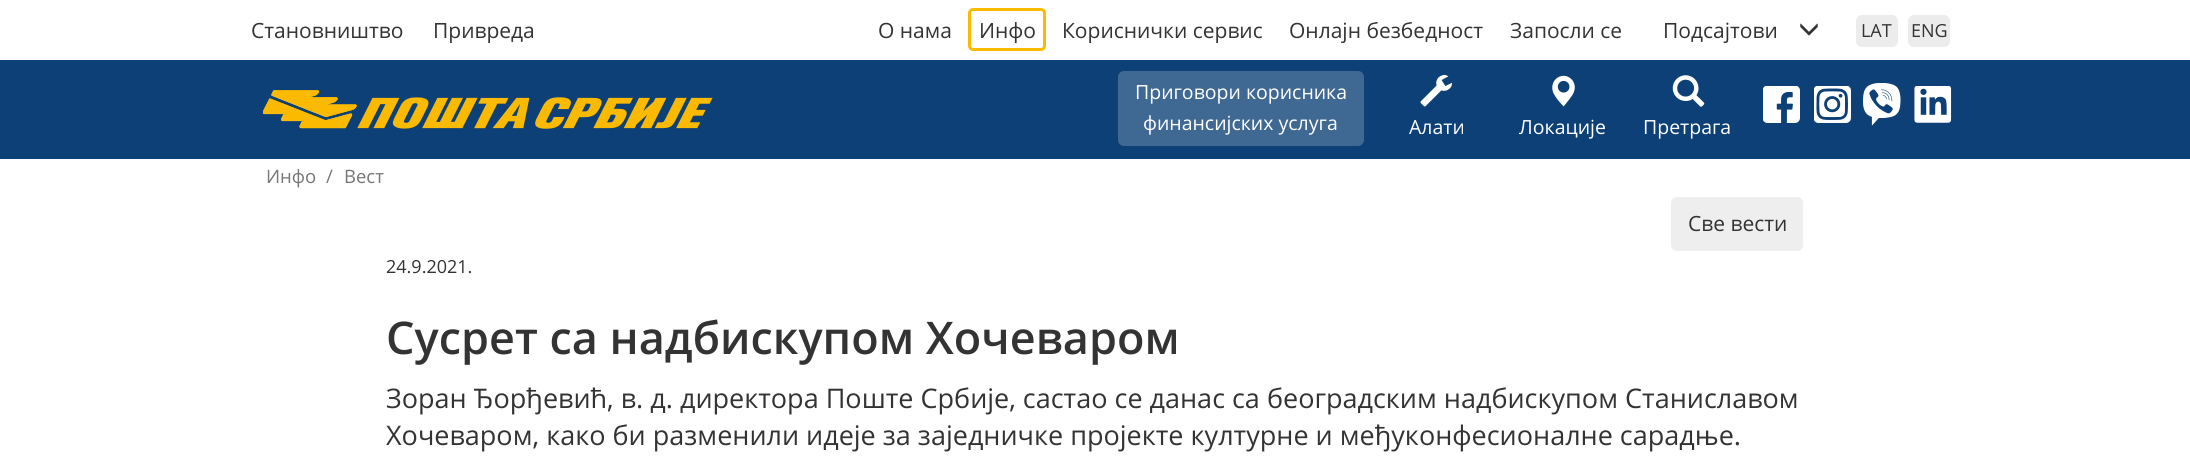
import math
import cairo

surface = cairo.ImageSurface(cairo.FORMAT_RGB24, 2190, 462)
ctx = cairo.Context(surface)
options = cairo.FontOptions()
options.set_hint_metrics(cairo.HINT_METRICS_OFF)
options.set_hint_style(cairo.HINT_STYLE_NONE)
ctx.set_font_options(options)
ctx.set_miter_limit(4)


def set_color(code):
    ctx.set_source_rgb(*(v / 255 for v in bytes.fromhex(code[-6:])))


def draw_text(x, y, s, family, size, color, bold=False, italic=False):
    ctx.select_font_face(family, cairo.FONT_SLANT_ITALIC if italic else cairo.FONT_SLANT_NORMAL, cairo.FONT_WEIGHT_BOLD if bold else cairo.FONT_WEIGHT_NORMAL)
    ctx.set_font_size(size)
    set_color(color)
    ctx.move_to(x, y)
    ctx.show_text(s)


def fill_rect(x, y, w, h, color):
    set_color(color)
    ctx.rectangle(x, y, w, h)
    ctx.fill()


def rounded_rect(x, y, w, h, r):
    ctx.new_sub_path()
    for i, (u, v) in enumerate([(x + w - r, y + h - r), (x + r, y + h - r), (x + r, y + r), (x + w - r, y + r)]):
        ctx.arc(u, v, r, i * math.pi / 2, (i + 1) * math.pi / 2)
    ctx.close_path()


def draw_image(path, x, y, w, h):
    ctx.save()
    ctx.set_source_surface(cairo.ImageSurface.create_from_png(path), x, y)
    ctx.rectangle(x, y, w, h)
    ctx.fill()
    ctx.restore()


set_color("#ffffff")
ctx.paint()
fill_rect(0, 60, 2190, 99, "#0c4076")
draw_text(251, 38, "Становништво", "Open Sans", 21, "#333333")
draw_text(433, 38, "Привреда", "Open Sans", 21, "#333333")
draw_text(878, 38, "О нама", "Open Sans", 21, "#333333")
rounded_rect(969.5, 9.5, 75, 40, 3.5)
set_color("#fbba00")
ctx.set_line_width(3)
ctx.stroke()
draw_text(979, 38, "Инфо", "Open Sans", 21, "#333333")
draw_text(1062, 38, "Кориснички сервис", "Open Sans", 21, "#333333")
draw_text(1289, 38, "Онлајн безбедност", "Open Sans", 21, "#333333")
draw_text(1510, 38, "Запосли се", "Open Sans", 21, "#333333")
draw_text(1663, 38, "Подсајтови", "Open Sans", 21, "#333333")
draw_image("assets/img1.png", 1800, 23, 18, 13)
set_color("#ececec")
rounded_rect(1856, 15, 42, 32, 6)
ctx.fill()
draw_text(1861, 37, "LAT", "Open Sans", 18, "#333333")
set_color("#ececec")
rounded_rect(1908, 15, 42, 32, 6)
ctx.fill()
draw_text(1911, 37, "ENG", "Open Sans", 18, "#333333")
set_color("#3f6893")
rounded_rect(1118, 71, 246, 75, 6)
ctx.fill()
draw_text(1135, 99, "Приговори корисника", "Open Sans", 19.5, "#ffffff")
draw_text(1143, 130, "финансијских услуга", "Open Sans", 19.5, "#ffffff")
draw_image("assets/img2.png", 1420, 75, 32, 32)
draw_text(1409, 134, "Алати", "Open Sans", 19.5, "#ffffff")
draw_image("assets/img3.png", 1552, 75, 23, 32)
draw_text(1519, 134, "Локације", "Open Sans", 19.5, "#ffffff")
draw_image("assets/img4.png", 1672, 75, 33, 32)
draw_text(1643, 134, "Претрага", "Open Sans", 19.5, "#ffffff")
draw_image("assets/img5.png", 263, 90, 450, 39)
draw_image("assets/img6.png", 1763, 86, 37, 37)
draw_image("assets/img7.png", 1814, 86, 37, 37)
draw_image("assets/img8.png", 1863, 83, 38, 43)
draw_image("assets/img9.png", 1914, 86, 38, 37)
draw_text(266, 183, "Инфо", "Open Sans", 18.5, "#777777")
draw_text(326, 183, "/", "Open Sans", 18.5, "#777777")
draw_text(344, 183, "Вест", "Open Sans", 18.5, "#777777")
set_color("#eeeeee")
rounded_rect(1671, 197, 132, 54, 6)
ctx.fill()
draw_text(1688, 231, "Све вести", "Open Sans", 21, "#333333")
draw_text(386, 273, "24.9.2021.", "Open Sans", 18, "#333333")
draw_text(386, 354, "Сусрет са надбискупом Хочеваром", "Open Sans SemiBold", 45, "#333333")
draw_text(386, 408, "Зоран Ђорђевић, в. д. директора Поште Србије, састао се данас са београдским надбискупом Станиславом", "Open Sans", 27, "#333333")
draw_text(386, 445, "Хочеваром, како би разменили идеје за заједничке пројекте културне и међуконфесионалне сарадње.", "Open Sans", 27, "#333333")
surface.write_to_png("output.png")
